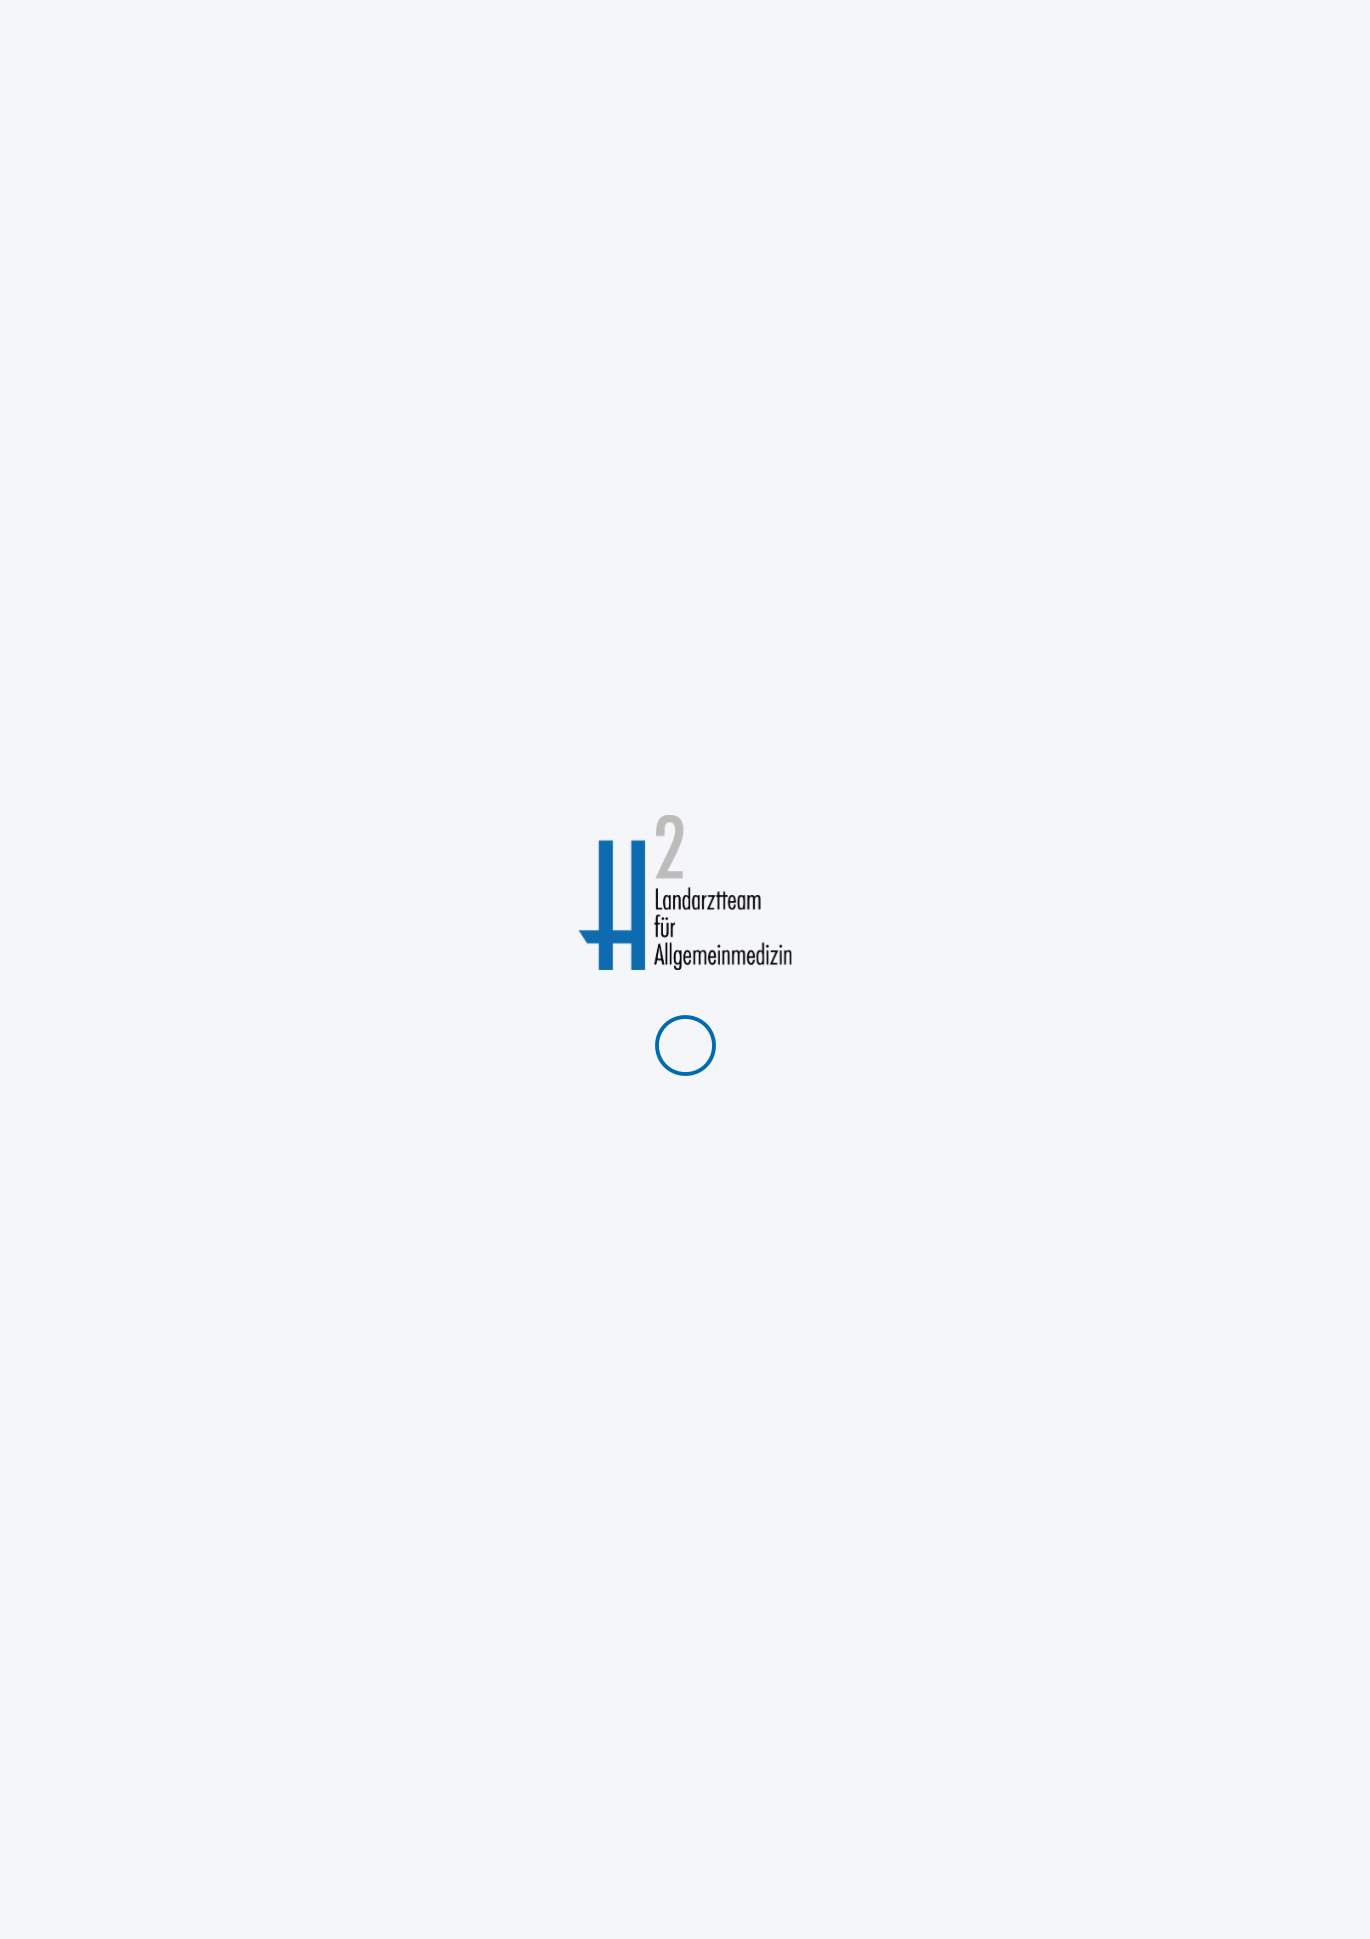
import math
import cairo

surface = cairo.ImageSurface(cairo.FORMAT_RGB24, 1370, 1939)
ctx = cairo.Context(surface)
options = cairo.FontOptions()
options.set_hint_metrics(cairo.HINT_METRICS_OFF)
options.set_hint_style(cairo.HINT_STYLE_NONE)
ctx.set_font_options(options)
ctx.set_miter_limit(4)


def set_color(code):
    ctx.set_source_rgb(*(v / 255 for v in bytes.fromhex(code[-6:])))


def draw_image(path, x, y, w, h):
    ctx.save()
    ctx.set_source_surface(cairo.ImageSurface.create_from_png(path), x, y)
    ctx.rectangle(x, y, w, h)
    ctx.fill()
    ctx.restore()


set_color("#f5f6fa")
ctx.paint()
draw_image("assets/img1.png", 578, 815, 214, 155)
ctx.new_path()
ctx.move_to(685, 1017)
ctx.curve_to(701.5, 1017, 714, 1029.5, 714, 1045.5)
ctx.curve_to(714, 1061.5, 701.5, 1074, 685.5, 1074)
ctx.curve_to(669.5, 1074, 657, 1061.5, 657, 1045.5)
ctx.curve_to(657, 1029.5, 669.5, 1017, 685.5, 1017)
ctx.close_path()
set_color("#dddddd")
ctx.set_line_width(3.8)
ctx.set_line_cap(cairo.LINE_CAP_ROUND)
ctx.stroke()
ctx.new_path()
ctx.move_to(685, 1017)
ctx.curve_to(701.5, 1017, 714, 1029.5, 714, 1045.5)
ctx.curve_to(714, 1061.5, 701.5, 1074, 685.5, 1074)
ctx.curve_to(669.5, 1074, 657, 1061.5, 657, 1045.5)
ctx.curve_to(657, 1029.5, 669.5, 1017, 685.5, 1017)
ctx.line_to(685, 1017)
set_color("#006bb0")
ctx.stroke()
surface.write_to_png("output.png")
